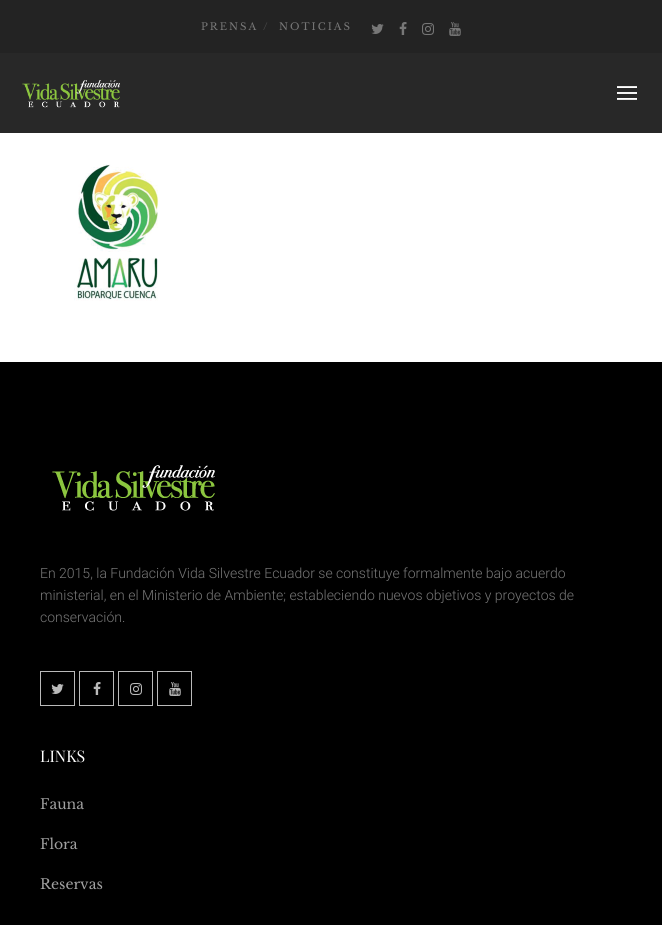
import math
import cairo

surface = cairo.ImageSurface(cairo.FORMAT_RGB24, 662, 925)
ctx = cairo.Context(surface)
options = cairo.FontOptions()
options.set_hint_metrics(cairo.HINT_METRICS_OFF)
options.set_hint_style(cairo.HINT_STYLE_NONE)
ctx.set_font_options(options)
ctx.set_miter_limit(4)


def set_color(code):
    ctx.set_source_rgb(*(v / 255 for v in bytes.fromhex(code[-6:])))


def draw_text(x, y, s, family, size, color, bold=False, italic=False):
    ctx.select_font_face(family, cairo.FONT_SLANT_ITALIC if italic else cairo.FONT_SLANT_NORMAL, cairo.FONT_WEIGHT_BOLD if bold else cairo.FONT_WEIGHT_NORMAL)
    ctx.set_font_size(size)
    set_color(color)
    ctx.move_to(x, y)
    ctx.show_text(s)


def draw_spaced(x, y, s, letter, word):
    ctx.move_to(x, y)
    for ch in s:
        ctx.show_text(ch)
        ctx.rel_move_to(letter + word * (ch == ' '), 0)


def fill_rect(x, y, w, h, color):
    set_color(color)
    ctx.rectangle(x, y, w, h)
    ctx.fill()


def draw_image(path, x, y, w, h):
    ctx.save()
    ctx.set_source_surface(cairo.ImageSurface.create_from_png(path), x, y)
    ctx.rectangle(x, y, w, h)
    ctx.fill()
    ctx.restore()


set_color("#ffffff")
ctx.paint()
fill_rect(0, 0, 662, 53, "#232323")
ctx.select_font_face("Libre Baskerville")
ctx.set_font_size(10)
set_color("#777777")
draw_spaced(201, 30, "PRENSA", 2, 0)
set_color("#4d4d4d")
draw_spaced(263, 30, "/", 2, 0)
set_color("#777777")
draw_spaced(279, 30, "NOTICIAS", 2, 0)
draw_image("assets/img1.png", 371, 24, 13, 10)
draw_image("assets/img2.png", 399, 22, 8, 13)
draw_image("assets/img3.png", 422, 23, 12, 12)
draw_image("assets/img4.png", 449, 22, 12, 14)
fill_rect(0, 53, 662, 80, "#282828")
draw_image("assets/img5.png", 22, 80, 98, 28)
draw_image("assets/img6.png", 617, 86, 20, 14)
draw_image("assets/img7.png", 74, 164, 85, 137)
fill_rect(0, 362, 662, 563, "#000000")
draw_image("assets/img8.png", 52, 465, 163, 46)
draw_text(40, 578, "En 2015, la Fundación Vida Silvestre Ecuador se constituye formalmente bajo acuerdo", "Roboto Light", 14, "#777777")
draw_text(40, 600, "ministerial, en el Ministerio de Ambiente; estableciendo nuevos objetivos y proyectos de", "Roboto Light", 14, "#777777")
draw_text(40, 622, "conservación.", "Roboto Light", 14, "#777777")
ctx.rectangle(40.5, 671.5, 34, 34)
set_color("#bababa")
ctx.set_line_width(1)
ctx.stroke()
draw_image("assets/img9.png", 51, 684, 13, 10)
ctx.rectangle(79.5, 671.5, 34, 34)
ctx.stroke()
draw_image("assets/img10.png", 93, 682, 8, 13)
ctx.rectangle(118.5, 671.5, 34, 34)
ctx.stroke()
draw_image("assets/img11.png", 130, 683, 12, 12)
ctx.rectangle(157.5, 671.5, 34, 34)
ctx.stroke()
draw_image("assets/img12.png", 169, 682, 12, 14)
draw_text(40, 762, "LINKS", "Playfair Display", 16, "#ffffff")
draw_text(40, 809, "Fauna", "Libre Baskerville", 14, "#a0a0a0")
draw_text(40, 849, "Flora", "Libre Baskerville", 14, "#a0a0a0")
draw_text(40, 889, "Reservas", "Libre Baskerville", 14, "#a0a0a0")
surface.write_to_png("output.png")
